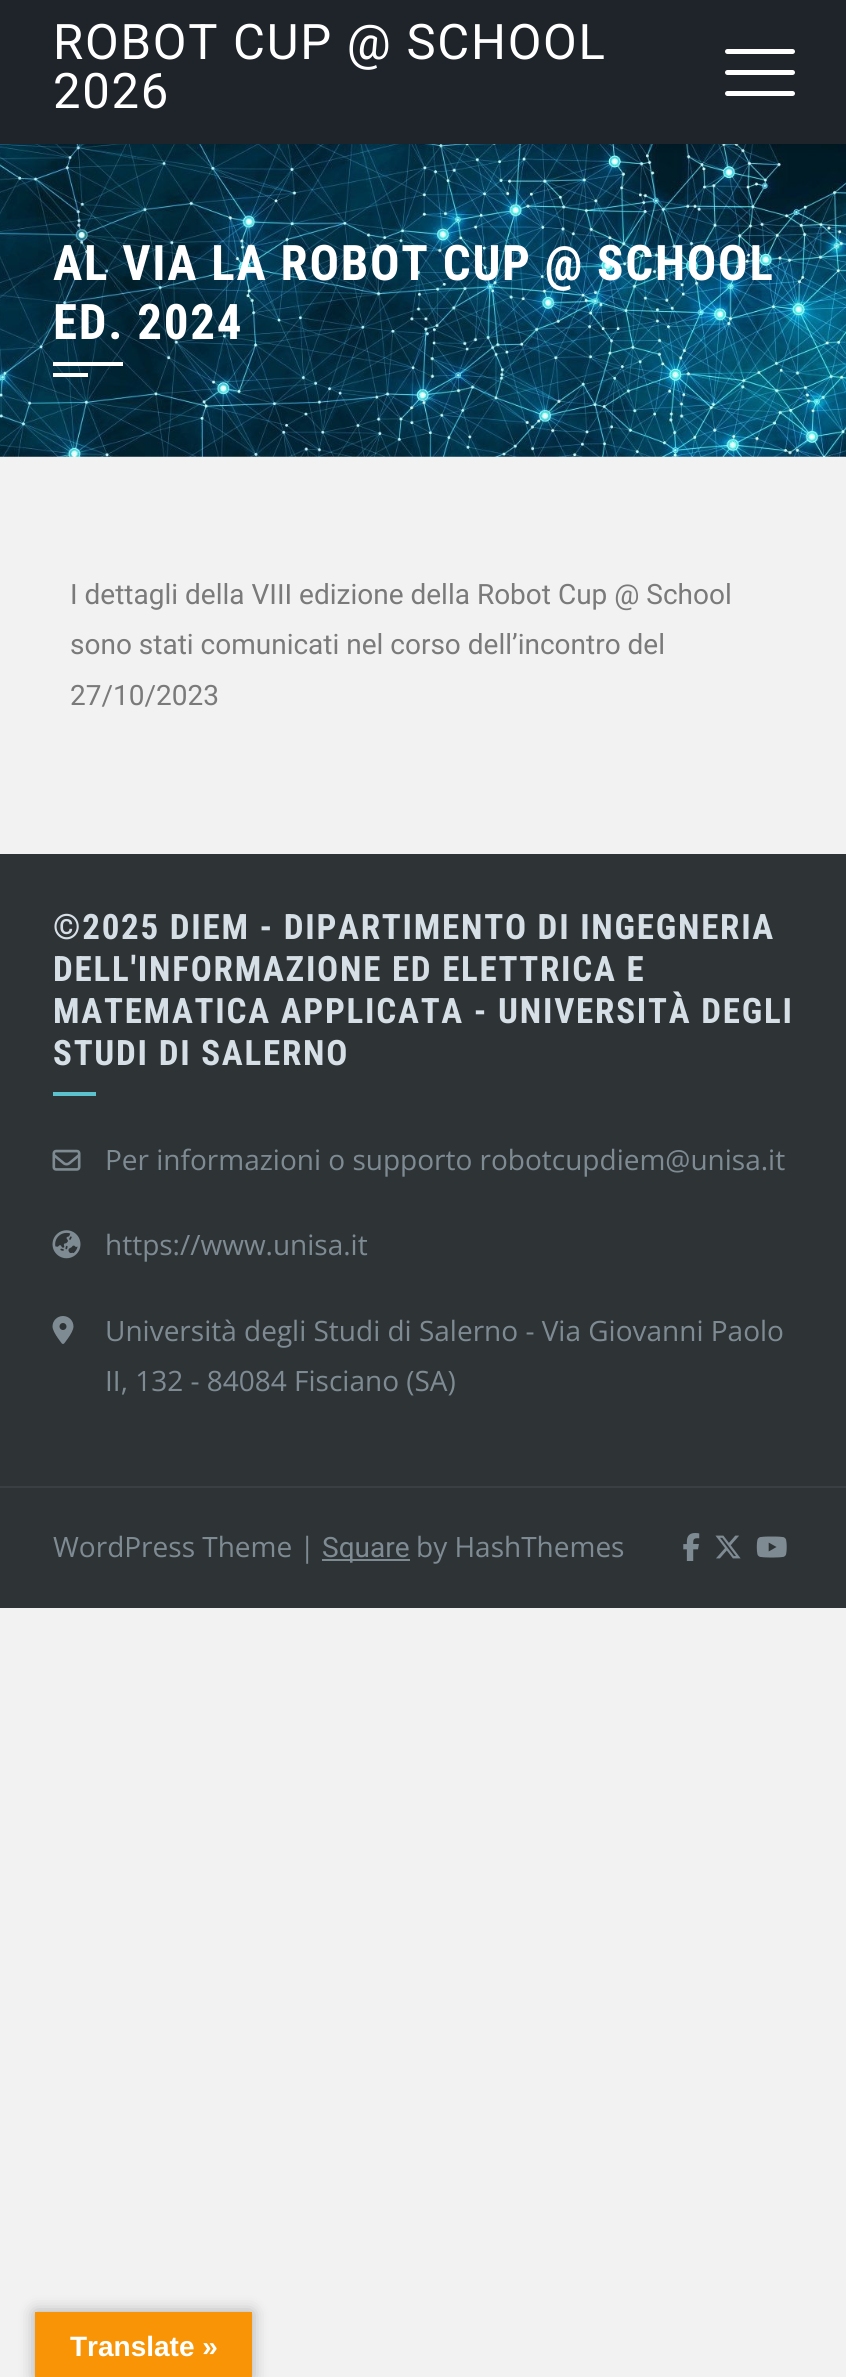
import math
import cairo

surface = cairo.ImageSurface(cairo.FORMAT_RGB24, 846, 2377)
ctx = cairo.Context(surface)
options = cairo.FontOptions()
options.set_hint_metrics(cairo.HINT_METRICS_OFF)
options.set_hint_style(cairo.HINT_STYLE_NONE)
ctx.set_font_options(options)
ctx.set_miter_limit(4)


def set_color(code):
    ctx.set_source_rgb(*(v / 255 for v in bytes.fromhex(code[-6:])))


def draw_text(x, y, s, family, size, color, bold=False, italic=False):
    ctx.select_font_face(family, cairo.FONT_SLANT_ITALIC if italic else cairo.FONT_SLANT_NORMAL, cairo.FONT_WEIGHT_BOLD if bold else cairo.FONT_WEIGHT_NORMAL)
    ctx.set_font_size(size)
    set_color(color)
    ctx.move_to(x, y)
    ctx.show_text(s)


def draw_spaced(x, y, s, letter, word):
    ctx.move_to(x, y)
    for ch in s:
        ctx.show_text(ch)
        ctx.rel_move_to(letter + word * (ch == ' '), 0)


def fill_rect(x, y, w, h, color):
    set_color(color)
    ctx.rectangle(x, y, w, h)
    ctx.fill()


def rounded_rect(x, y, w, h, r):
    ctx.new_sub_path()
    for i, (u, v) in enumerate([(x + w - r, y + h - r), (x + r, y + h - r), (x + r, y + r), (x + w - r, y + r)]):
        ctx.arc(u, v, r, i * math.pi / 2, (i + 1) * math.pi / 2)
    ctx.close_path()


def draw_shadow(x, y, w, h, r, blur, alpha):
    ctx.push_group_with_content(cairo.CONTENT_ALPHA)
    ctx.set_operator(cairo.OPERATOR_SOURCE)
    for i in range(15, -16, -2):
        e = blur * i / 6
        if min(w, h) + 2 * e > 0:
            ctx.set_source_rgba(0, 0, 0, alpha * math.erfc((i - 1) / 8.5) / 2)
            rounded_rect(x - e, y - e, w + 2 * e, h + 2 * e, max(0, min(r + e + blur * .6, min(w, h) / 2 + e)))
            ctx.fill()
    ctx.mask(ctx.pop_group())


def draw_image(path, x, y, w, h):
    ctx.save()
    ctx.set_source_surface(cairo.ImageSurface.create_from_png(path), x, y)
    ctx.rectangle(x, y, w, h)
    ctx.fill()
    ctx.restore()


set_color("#f2f2f2")
ctx.paint()
draw_image("assets/img1.png", 0, 144, 846, 313)
set_color("#000000")
draw_shadow(0, 0, 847, 144, 0, 7, 0.2)
fill_rect(0, 0, 846, 144, "#1e242a")
ctx.select_font_face("Roboto")
ctx.set_font_size(49)
set_color("#ffffff")
draw_spaced(53, 59, "ROBOT CUP @ SCHOOL", 1.75, 0)
draw_spaced(53, 108, "2026", 1.75, 0)
rounded_rect(725, 70, 70, 5, 2.5)
ctx.fill()
rounded_rect(725, 49, 70, 5, 2.5)
ctx.fill()
rounded_rect(725, 91, 70, 5, 2.5)
ctx.fill()
ctx.select_font_face("Roboto Condensed", cairo.FONT_SLANT_NORMAL, cairo.FONT_WEIGHT_BOLD)
draw_spaced(53, 280, "AL VIA LA ROBOT CUP @ SCHOOL", 1.75, 0)
draw_spaced(53, 339, "ED. 2024", 1.75, 0)
fill_rect(53, 362, 70, 4, "#ffffff")
fill_rect(53, 373, 35, 4, "#ffffff")
draw_text(70, 604, "I dettagli della VIII edizione della Robot Cup @ School", "Roboto", 28, "#7a7a7a")
draw_text(70, 654, "sono stati comunicati nel corso dell’incontro del", "Roboto", 28, "#7a7a7a")
draw_text(70, 705, "27/10/2023", "Roboto", 28, "#7a7a7a")
fill_rect(0, 854, 846, 754, "#2e3336")
fill_rect(0, 1486, 846, 2, "#393f42")
ctx.select_font_face("Roboto Condensed", cairo.FONT_SLANT_NORMAL, cairo.FONT_WEIGHT_BOLD)
ctx.set_font_size(35)
set_color("#d5dfe5")
draw_spaced(53, 939, "©2025 DIEM - DIPARTIMENTO DI INGEGNERIA", 1.75, 0)
draw_spaced(53, 981, "DELL'INFORMAZIONE ED ELETTRICA E", 1.75, 0)
draw_spaced(53, 1023, "MATEMATICA APPLICATA - UNIVERSITÀ DEGLI", 1.75, 0)
draw_spaced(53, 1065, "STUDI DI SALERNO", 1.75, 0)
fill_rect(53, 1092, 43, 4, "#5bc2ce")
draw_image("assets/img2.png", 52, 1149, 29, 22)
draw_text(105, 1170, "Per informazioni o supporto robotcupdiem@unisa.it", "Open Sans", 28, "#7e8b93")
draw_image("assets/img3.png", 52, 1230, 29, 29)
draw_text(105, 1255, "https://www.unisa.it", "Open Sans", 28, "#7e8b93")
draw_image("assets/img4.png", 52, 1316, 22, 28)
draw_text(105, 1341, "Università degli Studi di Salerno - Via Giovanni Paolo", "Open Sans", 28, "#7e8b93")
draw_text(105, 1391, "II, 132 - 84084 Fisciano (SA)", "Open Sans", 28, "#7e8b93")
draw_text(53, 1557, "WordPress Theme |", "Open Sans", 28, "#7e8b93")
fill_rect(322, 1559, 88, 2, "#7e8b93")
draw_text(322, 1557, "Square", "Roboto", 28, "#7e8b93")
draw_text(416, 1557, "by HashThemes", "Open Sans", 28, "#7e8b93")
draw_image("assets/img5.png", 683, 1533, 17, 28)
draw_image("assets/img6.png", 715, 1535, 26, 24)
draw_image("assets/img7.png", 756, 1536, 31, 22)
set_color("#000000")
draw_shadow(35, 2312, 217, 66, 0, 8, 0.3)
fill_rect(35, 2312, 217, 65, "#f89406")
draw_text(70, 2356, "Translate »", "Liberation Sans", 28, "#ffffff", bold=True)
surface.write_to_png("output.png")
